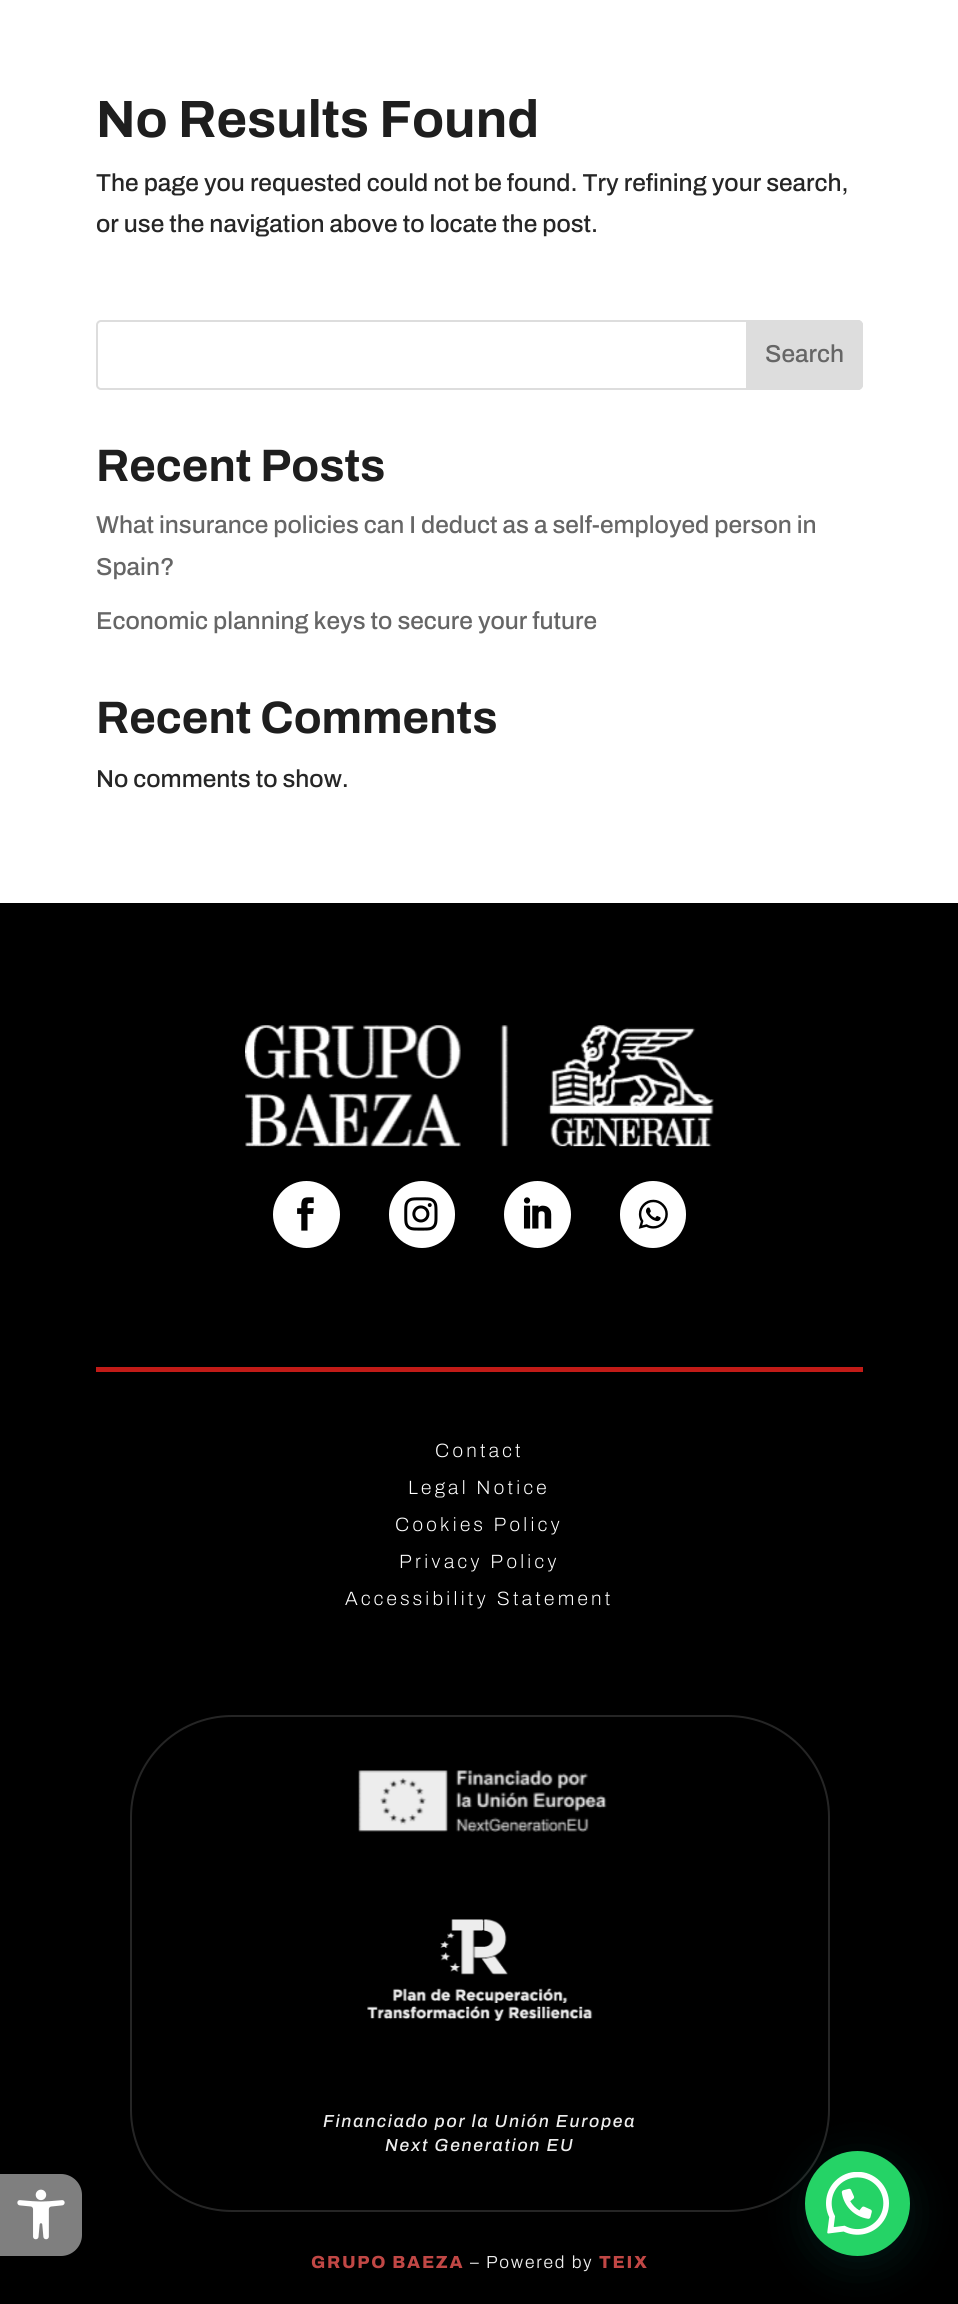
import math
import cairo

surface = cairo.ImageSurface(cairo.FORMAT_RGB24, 958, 2304)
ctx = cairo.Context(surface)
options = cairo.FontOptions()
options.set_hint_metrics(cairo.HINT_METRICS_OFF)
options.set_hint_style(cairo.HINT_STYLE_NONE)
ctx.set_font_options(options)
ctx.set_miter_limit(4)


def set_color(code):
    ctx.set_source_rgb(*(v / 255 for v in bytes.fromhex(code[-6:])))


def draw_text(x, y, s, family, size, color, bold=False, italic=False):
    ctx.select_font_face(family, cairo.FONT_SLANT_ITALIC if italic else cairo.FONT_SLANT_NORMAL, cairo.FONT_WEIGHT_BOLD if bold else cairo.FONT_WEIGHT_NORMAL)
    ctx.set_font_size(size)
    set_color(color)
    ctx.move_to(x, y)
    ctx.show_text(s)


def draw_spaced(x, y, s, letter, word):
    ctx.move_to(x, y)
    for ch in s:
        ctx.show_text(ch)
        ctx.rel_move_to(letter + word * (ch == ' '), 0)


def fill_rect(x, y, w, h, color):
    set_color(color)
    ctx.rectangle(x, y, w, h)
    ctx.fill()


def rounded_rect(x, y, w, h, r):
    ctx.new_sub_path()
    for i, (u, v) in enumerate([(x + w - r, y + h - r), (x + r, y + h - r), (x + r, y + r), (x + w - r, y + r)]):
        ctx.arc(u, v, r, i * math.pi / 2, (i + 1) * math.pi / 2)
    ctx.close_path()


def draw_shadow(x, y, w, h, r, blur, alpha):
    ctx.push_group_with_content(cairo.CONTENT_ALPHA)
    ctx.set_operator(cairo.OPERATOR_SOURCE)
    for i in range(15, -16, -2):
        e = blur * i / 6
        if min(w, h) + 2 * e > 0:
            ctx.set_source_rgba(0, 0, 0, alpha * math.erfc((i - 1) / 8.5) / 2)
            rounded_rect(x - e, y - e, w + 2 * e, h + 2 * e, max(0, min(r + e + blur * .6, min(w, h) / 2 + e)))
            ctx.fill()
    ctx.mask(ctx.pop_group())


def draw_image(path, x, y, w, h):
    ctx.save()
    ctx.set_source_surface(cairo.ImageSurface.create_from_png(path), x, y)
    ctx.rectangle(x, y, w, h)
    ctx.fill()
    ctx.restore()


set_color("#ffffff")
ctx.paint()
fill_rect(0, 903, 958, 1401, "#000000")
set_color("#7f7f7f")
ctx.new_path()
ctx.move_to(0, 2174)
ctx.line_to(61, 2174)
ctx.curve_to(72.5, 2174, 82, 2183.5, 82, 2195)
ctx.line_to(82, 2235)
ctx.curve_to(82, 2246.5, 72.5, 2256, 61, 2256)
ctx.line_to(0, 2256)
ctx.close_path()
ctx.fill()
draw_image("assets/img1.png", 17, 2189, 48, 51)
draw_text(96, 137, "No Results Found", "Archivo", 52.5, "#1e1e1e", bold=True)
draw_text(96, 191, "The page you requested could not be found. Try refining your search,", "Archivo Medium", 24.5, "#262626")
draw_text(96, 232, "or use the navigation above to locate the post.", "Archivo Medium", 24.5, "#262626")
rounded_rect(97, 321, 765, 68, 4)
set_color("#dddddd")
ctx.stroke()
ctx.new_path()
ctx.move_to(747, 321)
ctx.line_to(858, 321)
ctx.curve_to(860, 321, 862, 323, 862, 325)
ctx.line_to(862, 385)
ctx.curve_to(862, 387, 860, 389, 858, 389)
ctx.line_to(747, 389)
ctx.close_path()
ctx.fill_preserve()
ctx.stroke()
draw_text(765, 362, "Search", "Archivo Medium", 24.5, "#666666")
draw_text(96, 481, "Recent Posts", "Archivo", 45.5, "#1e1e1e", bold=True)
draw_text(96, 533, "What insurance policies can I deduct as a self-employed person in", "Archivo Medium", 24.5, "#666666")
draw_text(96, 575, "Spain?", "Archivo Medium", 24.5, "#666666")
draw_text(96, 629, "Economic planning keys to secure your future", "Archivo Medium", 24.5, "#666666")
draw_text(96, 733, "Recent Comments", "Archivo", 45.5, "#1e1e1e", bold=True)
draw_text(96, 787, "No comments to show.", "Archivo Medium", 24.5, "#262626")
fill_rect(96, 1367, 767, 5, "#c21b17")
draw_image("assets/img2.png", 245, 1025, 469, 122)
set_color("#ffffff")
ctx.arc(306.5, 1214.5, 33.5, 0, 2 * math.pi)
ctx.fill()
draw_image("assets/img3.png", 297, 1197, 17, 34)
rounded_rect(389, 1181, 66, 67, 33)
ctx.fill()
draw_image("assets/img4.png", 404, 1197, 34, 34)
ctx.arc(537.5, 1214.5, 33.5, 0, 2 * math.pi)
ctx.fill()
draw_image("assets/img5.png", 523, 1197, 29, 32)
rounded_rect(620, 1181, 66, 67, 33)
ctx.fill()
draw_image("assets/img6.png", 638, 1199, 30, 30)
ctx.select_font_face("Archivo ExtraLight")
ctx.set_font_size(19.25)
draw_spaced(435, 1457, "Contact", 3.3, 0)
draw_spaced(408, 1494, "Legal Notice", 3.3, 0)
draw_spaced(395, 1531, "Cookies Policy", 3.3, 0)
draw_spaced(399, 1568, "Privacy Policy", 3.3, 0)
draw_spaced(345, 1605, "Accessibility Statement", 3.3, 0)
rounded_rect(131, 1716, 698, 495, 101)
set_color("#252525")
ctx.stroke()
draw_image("assets/img7.png", 358, 1770, 249, 62)
draw_image("assets/img8.png", 367, 1919, 226, 102)
ctx.select_font_face("Archivo Medium", cairo.FONT_SLANT_ITALIC)
ctx.set_font_size(17.5)
set_color("#ededed")
draw_spaced(323, 2127, "Financiado por la Unión Europea", 1.75, 0)
draw_spaced(385, 2151, "Next Generation EU", 1.75, 0)
ctx.select_font_face("Archivo ExtraBold")
set_color("#c14745")
draw_spaced(311, 2268, "GRUPO BAEZA", 1.75, 0)
ctx.select_font_face("Archivo Light")
set_color("#ededed")
draw_spaced(470, 2268, "– Powered by", 1.75, 0)
ctx.select_font_face("Archivo ExtraBold")
set_color("#c14745")
draw_spaced(599, 2268, "TEIX", 1.75, 0)
set_color("#075e54")
draw_shadow(807, 2161, 105, 105, 52.5, 21, 0.24)
set_color("#25d366")
ctx.arc(857.5, 2203.5, 52.5, 0, 2 * math.pi)
ctx.fill()
draw_image("assets/img9.png", 826, 2172, 63, 63)
surface.write_to_png("output.png")
